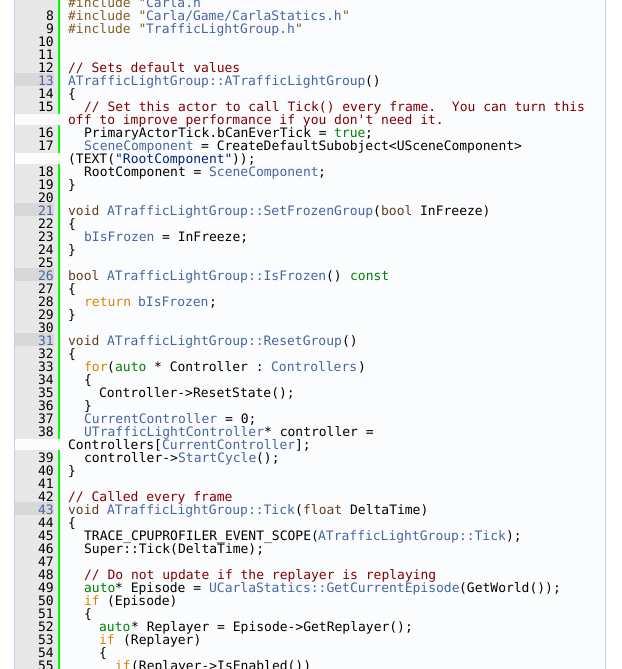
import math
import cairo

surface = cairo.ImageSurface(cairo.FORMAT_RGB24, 622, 669)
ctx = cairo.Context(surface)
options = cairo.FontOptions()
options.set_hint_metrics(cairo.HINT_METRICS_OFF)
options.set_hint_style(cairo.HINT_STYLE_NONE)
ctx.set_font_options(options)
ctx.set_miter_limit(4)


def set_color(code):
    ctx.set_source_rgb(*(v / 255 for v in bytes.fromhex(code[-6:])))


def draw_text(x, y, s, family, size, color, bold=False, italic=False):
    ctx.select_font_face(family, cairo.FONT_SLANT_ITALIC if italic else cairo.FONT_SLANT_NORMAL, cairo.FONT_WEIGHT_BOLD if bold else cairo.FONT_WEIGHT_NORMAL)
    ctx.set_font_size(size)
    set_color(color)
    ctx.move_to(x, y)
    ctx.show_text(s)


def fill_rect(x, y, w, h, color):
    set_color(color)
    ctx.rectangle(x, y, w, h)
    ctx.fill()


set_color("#ffffff")
ctx.paint()
set_color("#fbfcfd")
ctx.rectangle(14.5, -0.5, 591, 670)
ctx.fill_preserve()
set_color("#c4cfe5")
ctx.set_line_width(1)
ctx.stroke()
fill_rect(15, 0, 43, 73, "#e8e8e8")
fill_rect(58, 0, 2, 114, "#00ff00")
draw_text(68, 7, "#include \"", "DejaVu Sans Mono", 13, "#806020")
draw_text(146, 7, "Carla.h", "DejaVu Sans Mono", 13, "#4665a2")
draw_text(46, 20, "8", "DejaVu Sans Mono", 13, "#000000")
draw_text(68, 20, "#include \"", "DejaVu Sans Mono", 13, "#806020")
draw_text(146, 20, "Carla/Game/CarlaStatics.h", "DejaVu Sans Mono", 13, "#4665a2")
draw_text(342, 20, "\"", "DejaVu Sans Mono", 13, "#806020")
draw_text(46, 33, "9", "DejaVu Sans Mono", 13, "#000000")
draw_text(68, 33, "#include \"", "DejaVu Sans Mono", 13, "#806020")
draw_text(146, 33, "TrafficLightGroup.h", "DejaVu Sans Mono", 13, "#4665a2")
draw_text(295, 33, "\"", "DejaVu Sans Mono", 13, "#806020")
draw_text(38, 46, "10", "DejaVu Sans Mono", 13, "#000000")
draw_text(38, 59, "11", "DejaVu Sans Mono", 13, "#000000")
draw_text(38, 72, "12", "DejaVu Sans Mono", 13, "#000000")
draw_text(68, 72, "// Sets default values", "DejaVu Sans Mono", 13, "#800000")
fill_rect(15, 73, 39, 13, "#d8d8d8")
draw_text(38, 85, "13", "DejaVu Sans Mono", 13, "#4665a2")
fill_rect(54, 73, 4, 13, "#e8e8e8")
draw_text(68, 85, "ATrafficLightGroup::ATrafficLightGroup", "DejaVu Sans Mono", 13, "#4665a2")
draw_text(365, 85, "()", "DejaVu Sans Mono", 13, "#000000")
fill_rect(15, 86, 43, 28, "#e8e8e8")
draw_text(38, 98, "14", "DejaVu Sans Mono", 13, "#000000")
draw_text(68, 98, "{", "DejaVu Sans Mono", 13, "#000000")
draw_text(38, 111, "15", "DejaVu Sans Mono", 13, "#000000")
draw_text(84, 111, "// Set this actor to call Tick() every frame.  You can turn this", "DejaVu Sans Mono", 13, "#800000")
draw_text(68, 124, "off to improve performance if you don't need it.", "DejaVu Sans Mono", 13, "#800000")
fill_rect(15, 125, 43, 28, "#e8e8e8")
draw_text(38, 137, "16", "DejaVu Sans Mono", 13, "#000000")
fill_rect(58, 125, 2, 28, "#00ff00")
draw_text(84, 137, "PrimaryActorTick.bCanEverTick =", "DejaVu Sans Mono", 13, "#000000")
draw_text(334, 137, "true", "DejaVu Sans Mono", 13, "#008000")
draw_text(365, 137, ";", "DejaVu Sans Mono", 13, "#000000")
draw_text(38, 150, "17", "DejaVu Sans Mono", 13, "#000000")
draw_text(84, 150, "SceneComponent", "DejaVu Sans Mono", 13, "#4665a2")
draw_text(201, 150, "= CreateDefaultSubobject<USceneComponent>", "DejaVu Sans Mono", 13, "#000000")
draw_text(68, 163, "(TEXT(", "DejaVu Sans Mono", 13, "#000000")
draw_text(115, 163, "\"RootComponent\"", "DejaVu Sans Mono", 13, "#002080")
draw_text(232, 163, "));", "DejaVu Sans Mono", 13, "#000000")
fill_rect(15, 164, 43, 39, "#e8e8e8")
draw_text(38, 176, "18", "DejaVu Sans Mono", 13, "#000000")
fill_rect(58, 164, 2, 275, "#00ff00")
draw_text(84, 176, "RootComponent =", "DejaVu Sans Mono", 13, "#000000")
draw_text(209, 176, "SceneComponent", "DejaVu Sans Mono", 13, "#4665a2")
draw_text(318, 176, ";", "DejaVu Sans Mono", 13, "#000000")
draw_text(38, 189, "19", "DejaVu Sans Mono", 13, "#000000")
draw_text(68, 189, "}", "DejaVu Sans Mono", 13, "#000000")
draw_text(38, 202, "20", "DejaVu Sans Mono", 13, "#000000")
fill_rect(15, 203, 39, 13, "#d8d8d8")
draw_text(38, 215, "21", "DejaVu Sans Mono", 13, "#4665a2")
fill_rect(54, 203, 4, 13, "#e8e8e8")
draw_text(68, 215, "void", "DejaVu Sans Mono", 13, "#604020")
draw_text(107, 215, "ATrafficLightGroup::SetFrozenGroup", "DejaVu Sans Mono", 13, "#4665a2")
draw_text(373, 215, "(", "DejaVu Sans Mono", 13, "#000000")
draw_text(381, 215, "bool", "DejaVu Sans Mono", 13, "#604020")
draw_text(420, 215, "InFreeze)", "DejaVu Sans Mono", 13, "#000000")
fill_rect(15, 216, 43, 52, "#e8e8e8")
draw_text(38, 228, "22", "DejaVu Sans Mono", 13, "#000000")
draw_text(68, 228, "{", "DejaVu Sans Mono", 13, "#000000")
draw_text(38, 241, "23", "DejaVu Sans Mono", 13, "#000000")
draw_text(84, 241, "bIsFrozen", "DejaVu Sans Mono", 13, "#4665a2")
draw_text(162, 241, "= InFreeze;", "DejaVu Sans Mono", 13, "#000000")
draw_text(38, 254, "24", "DejaVu Sans Mono", 13, "#000000")
draw_text(68, 254, "}", "DejaVu Sans Mono", 13, "#000000")
draw_text(38, 267, "25", "DejaVu Sans Mono", 13, "#000000")
fill_rect(15, 268, 39, 13, "#d8d8d8")
draw_text(38, 280, "26", "DejaVu Sans Mono", 13, "#4665a2")
fill_rect(54, 268, 4, 13, "#e8e8e8")
draw_text(68, 280, "bool", "DejaVu Sans Mono", 13, "#604020")
draw_text(107, 280, "ATrafficLightGroup::IsFrozen", "DejaVu Sans Mono", 13, "#4665a2")
draw_text(326, 280, "()", "DejaVu Sans Mono", 13, "#000000")
draw_text(350, 280, "const", "DejaVu Sans Mono", 13, "#008000")
fill_rect(15, 281, 43, 52, "#e8e8e8")
draw_text(38, 293, "27", "DejaVu Sans Mono", 13, "#000000")
draw_text(68, 293, "{", "DejaVu Sans Mono", 13, "#000000")
draw_text(38, 306, "28", "DejaVu Sans Mono", 13, "#000000")
draw_text(84, 306, "return", "DejaVu Sans Mono", 13, "#e08000")
draw_text(138, 306, "bIsFrozen", "DejaVu Sans Mono", 13, "#4665a2")
draw_text(209, 306, ";", "DejaVu Sans Mono", 13, "#000000")
draw_text(38, 319, "29", "DejaVu Sans Mono", 13, "#000000")
draw_text(68, 319, "}", "DejaVu Sans Mono", 13, "#000000")
draw_text(38, 332, "30", "DejaVu Sans Mono", 13, "#000000")
fill_rect(15, 333, 39, 13, "#d8d8d8")
draw_text(38, 345, "31", "DejaVu Sans Mono", 13, "#4665a2")
fill_rect(54, 333, 4, 13, "#e8e8e8")
draw_text(68, 345, "void", "DejaVu Sans Mono", 13, "#604020")
draw_text(107, 345, "ATrafficLightGroup::ResetGroup", "DejaVu Sans Mono", 13, "#4665a2")
draw_text(342, 345, "()", "DejaVu Sans Mono", 13, "#000000")
fill_rect(15, 346, 43, 93, "#e8e8e8")
draw_text(38, 358, "32", "DejaVu Sans Mono", 13, "#000000")
draw_text(68, 358, "{", "DejaVu Sans Mono", 13, "#000000")
draw_text(38, 371, "33", "DejaVu Sans Mono", 13, "#000000")
draw_text(84, 371, "for", "DejaVu Sans Mono", 13, "#e08000")
draw_text(107, 371, "(", "DejaVu Sans Mono", 13, "#000000")
draw_text(115, 371, "auto", "DejaVu Sans Mono", 13, "#008000")
draw_text(154, 371, "* Controller :", "DejaVu Sans Mono", 13, "#000000")
draw_text(271, 371, "Controllers", "DejaVu Sans Mono", 13, "#4665a2")
draw_text(358, 371, ")", "DejaVu Sans Mono", 13, "#000000")
draw_text(38, 384, "34", "DejaVu Sans Mono", 13, "#000000")
draw_text(84, 384, "{", "DejaVu Sans Mono", 13, "#000000")
draw_text(38, 397, "35", "DejaVu Sans Mono", 13, "#000000")
draw_text(99, 397, "Controller->ResetState();", "DejaVu Sans Mono", 13, "#000000")
draw_text(38, 410, "36", "DejaVu Sans Mono", 13, "#000000")
draw_text(84, 410, "}", "DejaVu Sans Mono", 13, "#000000")
draw_text(38, 423, "37", "DejaVu Sans Mono", 13, "#000000")
draw_text(84, 423, "CurrentController", "DejaVu Sans Mono", 13, "#4665a2")
draw_text(225, 423, "= 0;", "DejaVu Sans Mono", 13, "#000000")
draw_text(38, 436, "38", "DejaVu Sans Mono", 13, "#000000")
draw_text(84, 436, "UTrafficLightController", "DejaVu Sans Mono", 13, "#4665a2")
draw_text(264, 436, "* controller =", "DejaVu Sans Mono", 13, "#000000")
draw_text(68, 449, "Controllers[", "DejaVu Sans Mono", 13, "#000000")
draw_text(162, 449, "CurrentController", "DejaVu Sans Mono", 13, "#4665a2")
draw_text(295, 449, "];", "DejaVu Sans Mono", 13, "#000000")
fill_rect(15, 450, 43, 52, "#e8e8e8")
draw_text(38, 462, "39", "DejaVu Sans Mono", 13, "#000000")
fill_rect(58, 450, 2, 219, "#00ff00")
draw_text(84, 462, "controller->", "DejaVu Sans Mono", 13, "#000000")
draw_text(178, 462, "StartCycle", "DejaVu Sans Mono", 13, "#4665a2")
draw_text(256, 462, "();", "DejaVu Sans Mono", 13, "#000000")
draw_text(38, 475, "40", "DejaVu Sans Mono", 13, "#000000")
draw_text(68, 475, "}", "DejaVu Sans Mono", 13, "#000000")
draw_text(38, 488, "41", "DejaVu Sans Mono", 13, "#000000")
draw_text(38, 501, "42", "DejaVu Sans Mono", 13, "#000000")
draw_text(68, 501, "// Called every frame", "DejaVu Sans Mono", 13, "#800000")
fill_rect(15, 502, 39, 13, "#d8d8d8")
draw_text(38, 514, "43", "DejaVu Sans Mono", 13, "#4665a2")
fill_rect(54, 502, 4, 13, "#e8e8e8")
draw_text(68, 514, "void", "DejaVu Sans Mono", 13, "#604020")
draw_text(107, 514, "ATrafficLightGroup::Tick", "DejaVu Sans Mono", 13, "#4665a2")
draw_text(295, 514, "(", "DejaVu Sans Mono", 13, "#000000")
draw_text(303, 514, "float", "DejaVu Sans Mono", 13, "#604020")
draw_text(350, 514, "DeltaTime)", "DejaVu Sans Mono", 13, "#000000")
fill_rect(15, 515, 43, 154, "#e8e8e8")
draw_text(38, 527, "44", "DejaVu Sans Mono", 13, "#000000")
draw_text(68, 527, "{", "DejaVu Sans Mono", 13, "#000000")
draw_text(38, 540, "45", "DejaVu Sans Mono", 13, "#000000")
draw_text(84, 540, "TRACE_CPUPROFILER_EVENT_SCOPE(", "DejaVu Sans Mono", 13, "#000000")
draw_text(318, 540, "ATrafficLightGroup::Tick", "DejaVu Sans Mono", 13, "#4665a2")
draw_text(506, 540, ");", "DejaVu Sans Mono", 13, "#000000")
draw_text(38, 553, "46", "DejaVu Sans Mono", 13, "#000000")
draw_text(84, 553, "Super::Tick(DeltaTime);", "DejaVu Sans Mono", 13, "#000000")
draw_text(38, 566, "47", "DejaVu Sans Mono", 13, "#000000")
draw_text(38, 579, "48", "DejaVu Sans Mono", 13, "#000000")
draw_text(84, 579, "// Do not update if the replayer is replaying", "DejaVu Sans Mono", 13, "#800000")
draw_text(38, 592, "49", "DejaVu Sans Mono", 13, "#000000")
draw_text(84, 592, "auto", "DejaVu Sans Mono", 13, "#008000")
draw_text(115, 592, "* Episode =", "DejaVu Sans Mono", 13, "#000000")
draw_text(209, 592, "UCarlaStatics::GetCurrentEpisode", "DejaVu Sans Mono", 13, "#4665a2")
draw_text(459, 592, "(GetWorld());", "DejaVu Sans Mono", 13, "#000000")
draw_text(38, 605, "50", "DejaVu Sans Mono", 13, "#000000")
draw_text(84, 605, "if", "DejaVu Sans Mono", 13, "#e08000")
draw_text(107, 605, "(Episode)", "DejaVu Sans Mono", 13, "#000000")
draw_text(38, 618, "51", "DejaVu Sans Mono", 13, "#000000")
draw_text(84, 618, "{", "DejaVu Sans Mono", 13, "#000000")
draw_text(38, 631, "52", "DejaVu Sans Mono", 13, "#000000")
draw_text(99, 631, "auto", "DejaVu Sans Mono", 13, "#008000")
draw_text(131, 631, "* Replayer = Episode->GetReplayer();", "DejaVu Sans Mono", 13, "#000000")
draw_text(38, 644, "53", "DejaVu Sans Mono", 13, "#000000")
draw_text(99, 644, "if", "DejaVu Sans Mono", 13, "#e08000")
draw_text(123, 644, "(Replayer)", "DejaVu Sans Mono", 13, "#000000")
draw_text(38, 657, "54", "DejaVu Sans Mono", 13, "#000000")
draw_text(99, 657, "{", "DejaVu Sans Mono", 13, "#000000")
draw_text(38, 670, "55", "DejaVu Sans Mono", 13, "#000000")
draw_text(115, 670, "if", "DejaVu Sans Mono", 13, "#e08000")
draw_text(131, 670, "(Replayer->IsEnabled())", "DejaVu Sans Mono", 13, "#000000")
surface.write_to_png("output.png")
